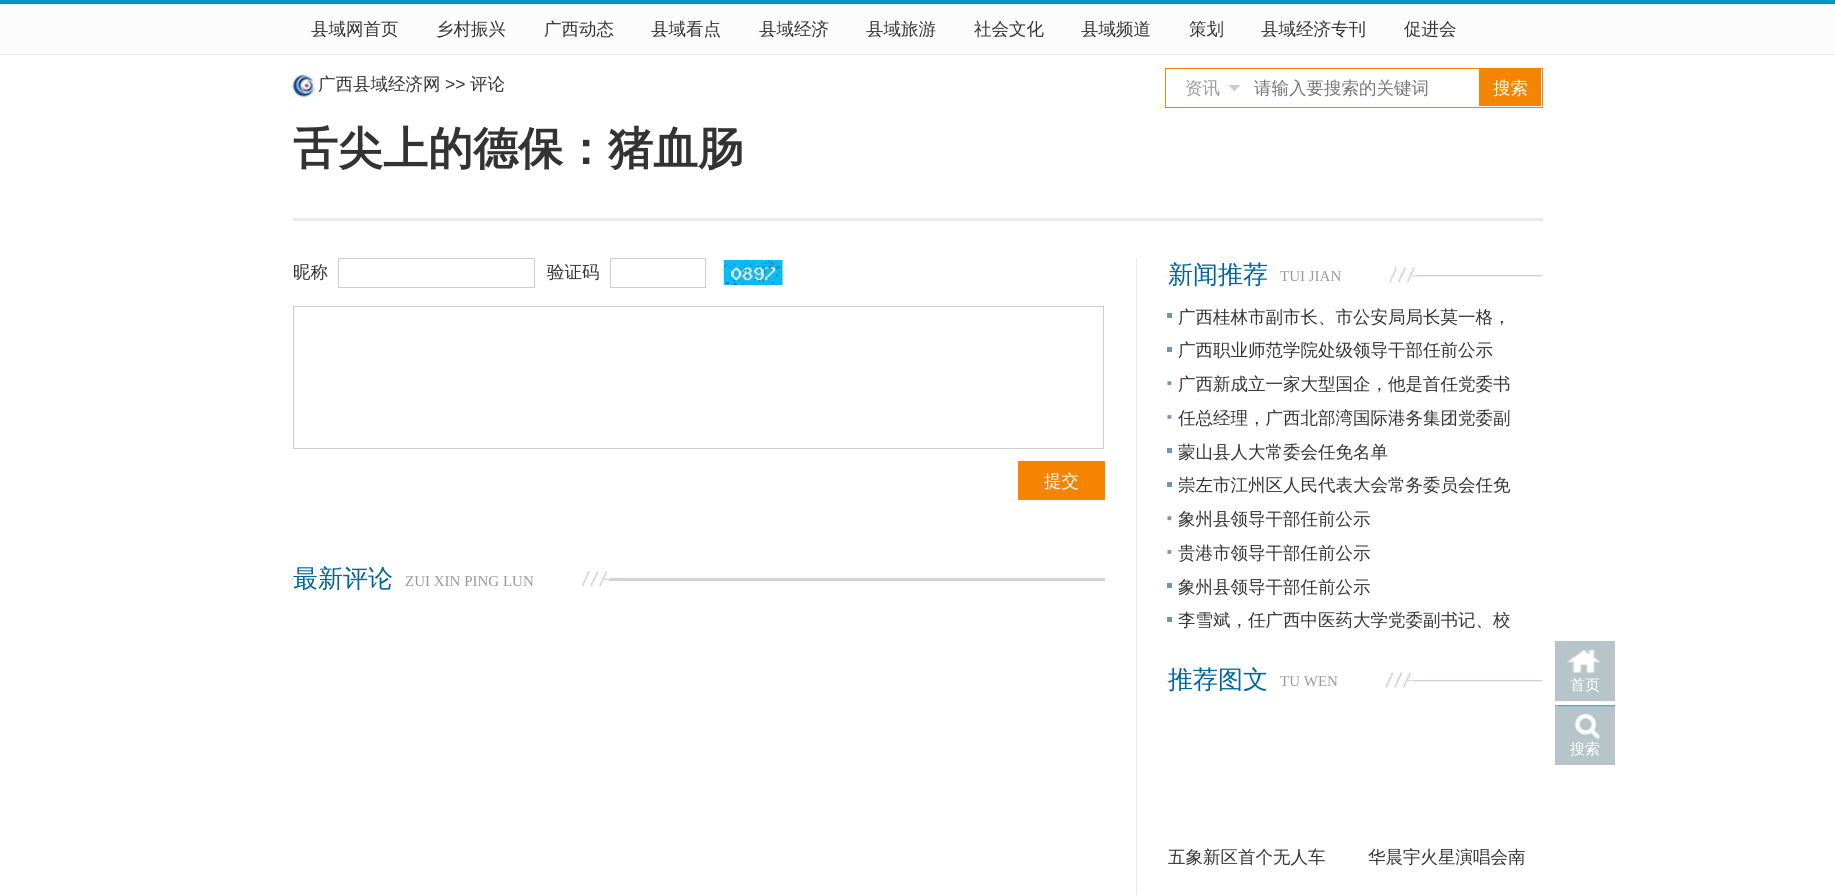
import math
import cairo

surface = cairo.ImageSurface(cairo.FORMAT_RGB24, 1835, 895)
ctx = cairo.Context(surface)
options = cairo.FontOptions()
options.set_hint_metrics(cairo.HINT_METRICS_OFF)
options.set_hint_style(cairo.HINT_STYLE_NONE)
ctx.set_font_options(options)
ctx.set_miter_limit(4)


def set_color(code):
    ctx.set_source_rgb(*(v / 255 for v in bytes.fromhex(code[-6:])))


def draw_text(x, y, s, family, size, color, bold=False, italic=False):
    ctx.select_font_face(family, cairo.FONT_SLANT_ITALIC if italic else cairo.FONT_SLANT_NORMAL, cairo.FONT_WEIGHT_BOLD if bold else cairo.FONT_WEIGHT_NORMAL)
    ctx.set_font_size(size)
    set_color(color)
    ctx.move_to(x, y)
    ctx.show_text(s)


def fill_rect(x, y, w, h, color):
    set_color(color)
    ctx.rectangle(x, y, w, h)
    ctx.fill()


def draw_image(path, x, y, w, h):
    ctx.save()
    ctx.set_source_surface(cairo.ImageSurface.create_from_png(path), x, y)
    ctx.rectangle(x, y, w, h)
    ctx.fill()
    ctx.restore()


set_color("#ffffff")
ctx.paint()
fill_rect(0, 4, 1835, 50, "#fcfcfc")
fill_rect(0, 0, 1835, 4, "#0095c6")
fill_rect(0, 54, 1835, 1, "#e6e7ea")
draw_text(311, 35, "县域网首页", "WenQuanYi Zen Hei Medium", 17.5, "#333333")
draw_text(436, 35, "乡村振兴", "WenQuanYi Zen Hei Medium", 17.5, "#333333")
draw_text(544, 35, "广西动态", "WenQuanYi Zen Hei Medium", 17.5, "#333333")
draw_text(651, 35, "县域看点", "WenQuanYi Zen Hei Medium", 17.5, "#333333")
draw_text(759, 35, "县域经济", "WenQuanYi Zen Hei Medium", 17.5, "#333333")
draw_text(866, 35, "县域旅游", "WenQuanYi Zen Hei Medium", 17.5, "#333333")
draw_text(974, 35, "社会文化", "WenQuanYi Zen Hei Medium", 17.5, "#333333")
draw_text(1081, 35, "县域频道", "WenQuanYi Zen Hei Medium", 17.5, "#333333")
draw_text(1189, 35, "策划", "WenQuanYi Zen Hei Medium", 17.5, "#333333")
draw_text(1261, 35, "县域经济专刊", "WenQuanYi Zen Hei Medium", 17.5, "#333333")
draw_text(1404, 35, "促进会", "WenQuanYi Zen Hei Medium", 17.5, "#333333")
draw_image("assets/img1.png", 292, 75, 23, 23)
draw_text(318, 90, "广西县域经济网", "WenQuanYi Zen Hei Medium", 17.5, "#333333")
draw_text(445, 90, ">>", "Liberation Sans", 17.5, "#333333")
draw_text(470, 90, "评论", "WenQuanYi Zen Hei Medium", 17.5, "#333333")
ctx.rectangle(1165.5, 68.5, 377, 39)
set_color("#f58400")
ctx.set_line_width(1)
ctx.stroke()
draw_image("assets/img2.png", 1228, 85, 12, 7)
draw_text(1185, 94, "资讯", "WenQuanYi Zen Hei Medium", 17.5, "#999999")
draw_text(1254, 94, "请输入要搜索的关键词", "WenQuanYi Zen Hei Medium", 17.5, "#757575")
fill_rect(1479, 69, 62, 37, "#f58400")
draw_text(1493, 94, "搜索", "WenQuanYi Zen Hei Medium", 17.5, "#ffffff")
draw_text(293, 164, "舌尖上的德保：猪血肠", "WenQuanYi Zen Hei", 45, "#333333", bold=True)
fill_rect(293, 218, 1250, 3, "#eaeaea")
draw_text(293, 278, "昵称", "WenQuanYi Zen Hei Medium", 17.5, "#333333")
ctx.rectangle(338.5, 258.5, 196, 29)
set_color("#cccccc")
ctx.stroke()
draw_text(547, 278, "验证码", "WenQuanYi Zen Hei Medium", 17.5, "#333333")
ctx.rectangle(610.5, 258.5, 95, 29)
set_color("#cccccc")
ctx.stroke()
draw_image("assets/img3.png", 723, 260, 60, 25)
ctx.rectangle(293.5, 306.5, 810, 142)
ctx.stroke()
fill_rect(1018, 461, 87, 39, "#f58400")
draw_text(1044, 487, "提交", "WenQuanYi Zen Hei Medium", 17.5, "#ffffff")
fill_rect(292, 578, 813, 3, "#cbd6d9")
fill_rect(293, 578, 316, 3, "#ffffff")
draw_text(293, 587, "最新评论", "WenQuanYi Zen Hei Medium", 25, "#006699")
draw_image("assets/img4.png", 581, 571, 28, 16)
draw_text(405, 586, "ZUI XIN PING LUN", "Liberation Serif", 15, "#999999")
fill_rect(1136, 258, 1, 637, "#eaeaea")
draw_image("assets/img5.png", 1167, 275, 376, 2)
fill_rect(1168, 275, 248, 2, "#ffffff")
draw_text(1168, 283, "新闻推荐", "WenQuanYi Zen Hei Medium", 25, "#006699")
draw_image("assets/img6.png", 1388, 267, 29, 16)
draw_text(1280, 281, "TUI JIAN", "Liberation Serif", 15, "#999999")
fill_rect(1167, 313, 5, 5, "#7195b7")
draw_text(1178, 323, "广西桂林市副市长、市公安局局长莫一格，", "WenQuanYi Zen Hei Medium", 17.5, "#333333")
fill_rect(1167, 347, 5, 5, "#7195b7")
draw_text(1178, 356, "广西职业师范学院处级领导干部任前公示", "WenQuanYi Zen Hei Medium", 17.5, "#333333")
draw_image("assets/img7.png", 1167, 381, 5, 5)
draw_text(1178, 390, "广西新成立一家大型国企，他是首任党委书", "WenQuanYi Zen Hei Medium", 17.5, "#333333")
draw_image("assets/img8.png", 1167, 414, 5, 5)
draw_text(1178, 424, "任总经理，广西北部湾国际港务集团党委副", "WenQuanYi Zen Hei Medium", 17.5, "#333333")
fill_rect(1167, 448, 5, 5, "#7195b7")
draw_text(1178, 458, "蒙山县人大常委会任免名单", "WenQuanYi Zen Hei Medium", 17.5, "#333333")
fill_rect(1167, 482, 5, 5, "#7195b7")
draw_text(1178, 491, "崇左市江州区人民代表大会常务委员会任免", "WenQuanYi Zen Hei Medium", 17.5, "#333333")
draw_image("assets/img7.png", 1167, 516, 5, 5)
draw_text(1178, 525, "象州县领导干部任前公示", "WenQuanYi Zen Hei Medium", 17.5, "#333333")
draw_image("assets/img8.png", 1167, 549, 5, 5)
draw_text(1178, 559, "贵港市领导干部任前公示", "WenQuanYi Zen Hei Medium", 17.5, "#333333")
fill_rect(1167, 583, 5, 5, "#7195b7")
draw_text(1178, 593, "象州县领导干部任前公示", "WenQuanYi Zen Hei Medium", 17.5, "#333333")
fill_rect(1167, 617, 5, 5, "#7195b7")
draw_text(1178, 626, "李雪斌，任广西中医药大学党委副书记、校", "WenQuanYi Zen Hei Medium", 17.5, "#333333")
draw_image("assets/img5.png", 1167, 680, 376, 2)
fill_rect(1168, 680, 245, 2, "#ffffff")
draw_text(1168, 688, "推荐图文", "WenQuanYi Zen Hei Medium", 25, "#006699")
draw_image("assets/img9.png", 1385, 672, 28, 16)
draw_text(1280, 686, "TU WEN", "Liberation Serif", 15, "#999999")
draw_text(1168, 863, "五象新区首个无人车", "WenQuanYi Zen Hei Medium", 17.5, "#333333")
draw_text(1368, 863, "华晨宇火星演唱会南", "WenQuanYi Zen Hei Medium", 17.5, "#333333")
fill_rect(1555, 641, 60, 9, "#b7c5ca")
draw_image("assets/img10.png", 1555, 650, 60, 52)
draw_text(1570, 690, "首页", "WenQuanYi Zen Hei Medium", 15, "#ffffff")
fill_rect(1555, 705, 60, 60, "#b7c5ca")
draw_image("assets/img11.png", 1555, 705, 60, 34)
draw_text(1570, 754, "搜索", "WenQuanYi Zen Hei Medium", 15, "#ffffff")
surface.write_to_png("output.png")
